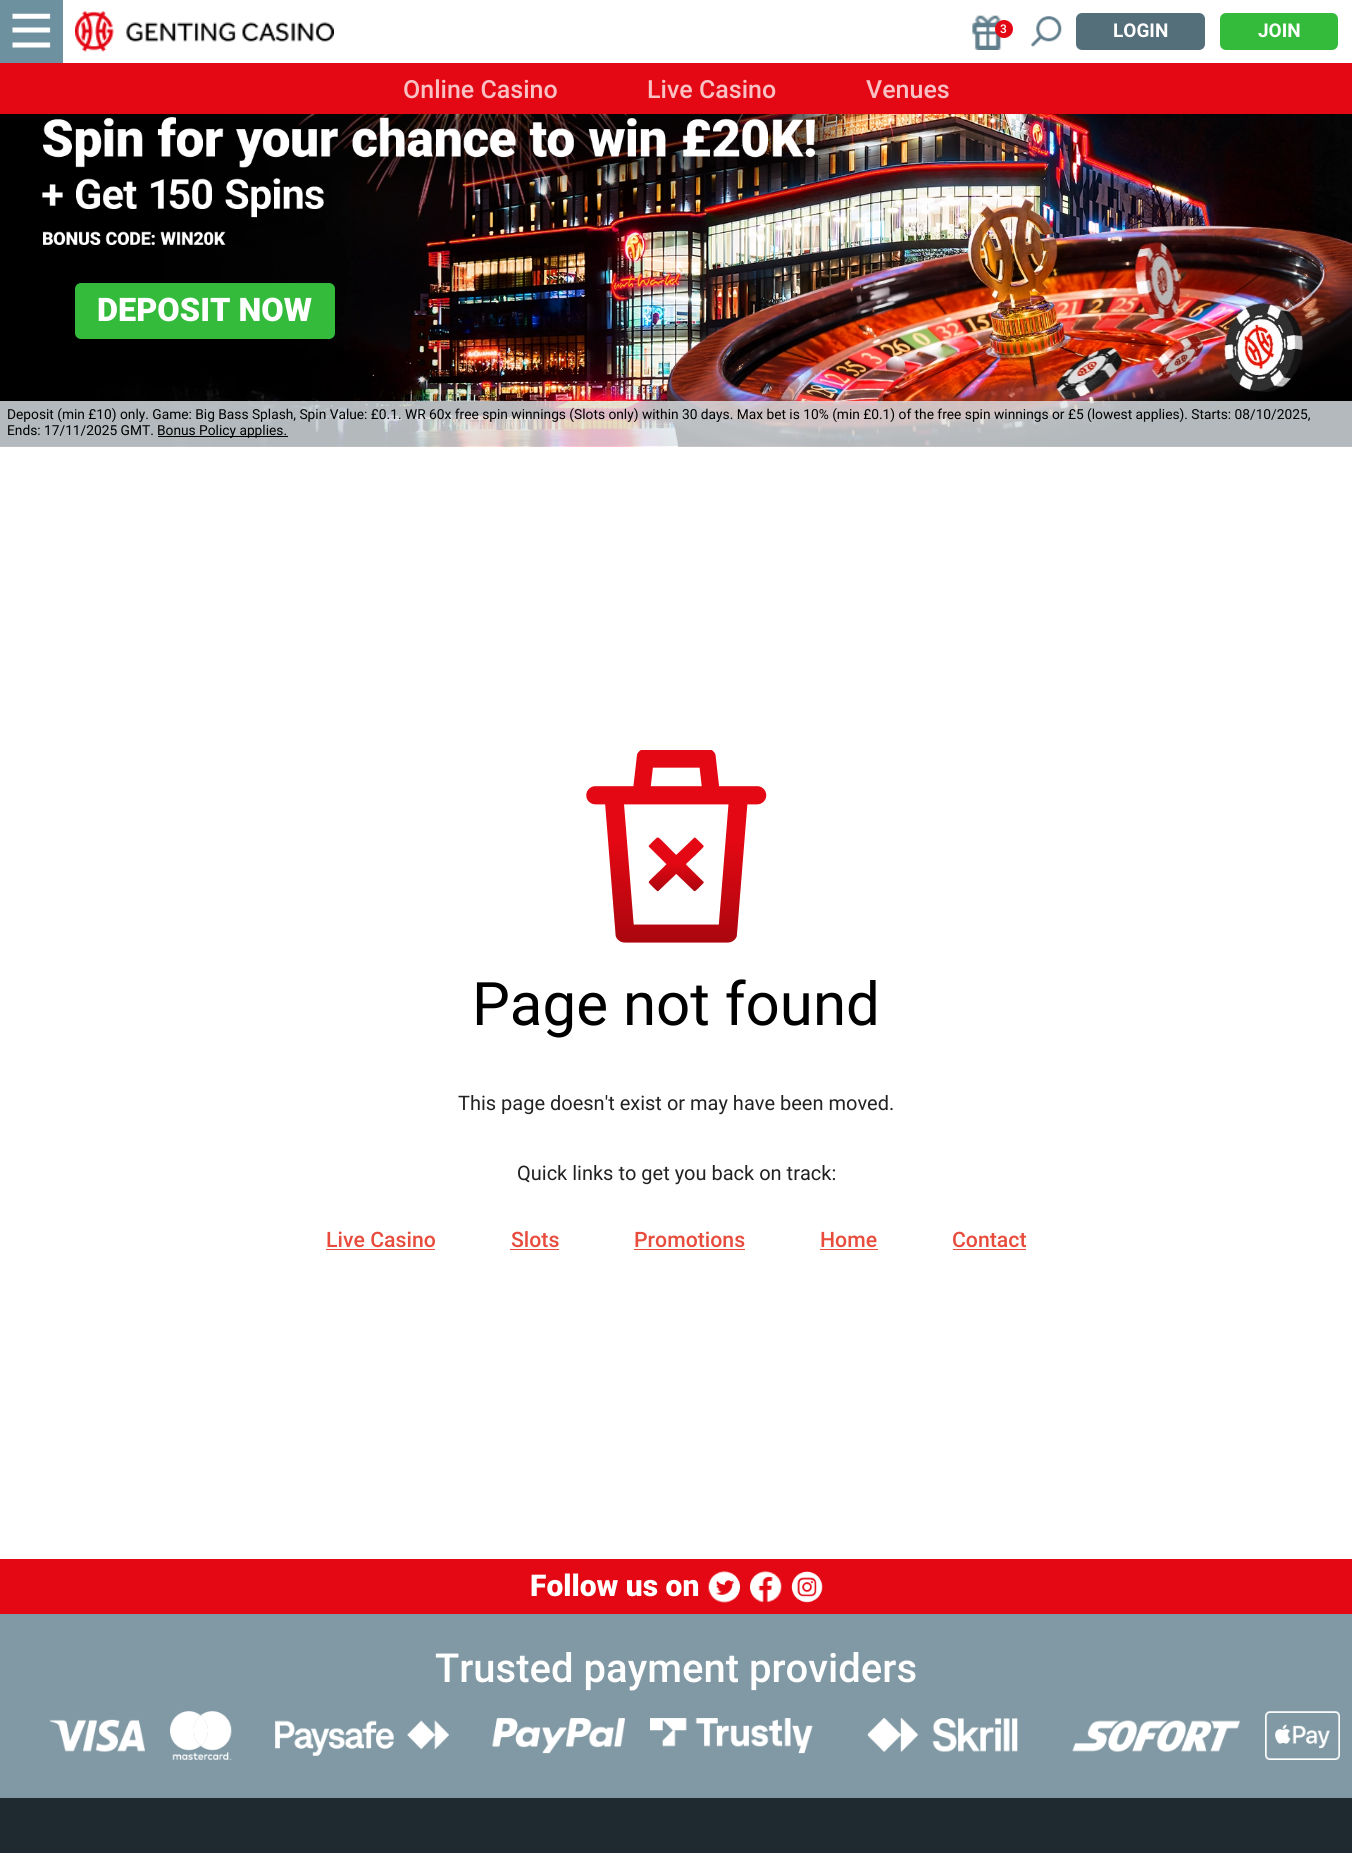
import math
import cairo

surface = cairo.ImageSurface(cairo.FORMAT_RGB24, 1352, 1853)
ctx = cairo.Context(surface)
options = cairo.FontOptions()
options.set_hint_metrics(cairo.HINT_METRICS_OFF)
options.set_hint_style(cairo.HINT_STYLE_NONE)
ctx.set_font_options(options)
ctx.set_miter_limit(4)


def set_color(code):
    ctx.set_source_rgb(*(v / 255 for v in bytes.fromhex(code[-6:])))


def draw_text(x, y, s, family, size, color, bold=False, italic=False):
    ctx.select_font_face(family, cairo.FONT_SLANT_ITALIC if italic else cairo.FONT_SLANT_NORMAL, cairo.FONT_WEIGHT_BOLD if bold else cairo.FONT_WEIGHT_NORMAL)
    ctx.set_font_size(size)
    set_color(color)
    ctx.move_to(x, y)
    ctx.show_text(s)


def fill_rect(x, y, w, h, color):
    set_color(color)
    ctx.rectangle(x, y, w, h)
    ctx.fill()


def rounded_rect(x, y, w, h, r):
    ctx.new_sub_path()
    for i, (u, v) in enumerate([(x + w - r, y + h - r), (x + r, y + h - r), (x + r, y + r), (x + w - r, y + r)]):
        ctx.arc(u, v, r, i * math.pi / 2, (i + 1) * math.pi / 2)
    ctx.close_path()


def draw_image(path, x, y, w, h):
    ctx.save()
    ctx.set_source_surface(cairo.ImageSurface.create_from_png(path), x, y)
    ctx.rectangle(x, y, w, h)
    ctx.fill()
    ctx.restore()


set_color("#ffffff")
ctx.paint()
fill_rect(0, 0, 63, 63, "#6e919f")
draw_image("assets/img1.png", 12, 13, 39, 35)
draw_image("assets/img2.png", 75, 11, 259, 41)
draw_image("assets/img3.png", 972, 15, 30, 35)
set_color("#e30813")
ctx.arc(1004, 29, 9, 0, 2 * math.pi)
ctx.fill()
draw_text(1000, 33, "3", "Roboto Medium", 12, "#ffffff")
draw_image("assets/img4.png", 1031, 16, 31, 31)
set_color("#546f7a")
rounded_rect(1076, 13, 129, 37, 6)
ctx.fill()
draw_text(1113, 37, "LOGIN", "Roboto", 19, "#ffffff", bold=True)
set_color("#34bb3b")
rounded_rect(1220, 13, 118, 37, 6)
ctx.fill()
draw_text(1258, 37, "JOIN", "Roboto", 19, "#ffffff", bold=True)
fill_rect(0, 63, 1352, 51, "#e40814")
draw_text(403, 98, "Online Casino", "Roboto Medium", 25, "#f9c1c4")
draw_text(647, 98, "Live Casino", "Roboto Medium", 25, "#f9c1c4")
draw_text(866, 98, "Venues", "Roboto Medium", 25, "#f9c1c4")
draw_image("assets/img5.png", 0, 114, 1352, 333)
draw_image("assets/img6.png", 2, 114, 857, 131)
set_color("#34bb3b")
rounded_rect(75, 283, 260, 56, 6)
ctx.fill()
draw_text(97, 321, "DEPOSIT NOW", "Roboto Black", 32.5, "#ffffff")
ctx.set_source_rgba(0.878, 0.906, 0.918, 0.8)
ctx.rectangle(0, 401, 1352, 45)
ctx.fill()
draw_text(7, 419, "Deposit (min £10) only. Game: Big Bass Splash, Spin Value: £0.1. WR 60x free spin winnings (Slots only) within 30 days. Max bet is 10% (min £0.1) of the free spin winnings or £5 (lowest applies). Starts: 08/10/2025,", "Roboto", 13.75, "#000000")
draw_text(7, 435, "Ends: 17/11/2025 GMT.", "Roboto", 13.75, "#000000")
fill_rect(158, 436, 130, 1, "#000000")
draw_text(157, 435, "Bonus Policy applies.", "Roboto", 13.75, "#000000")
draw_image("assets/img7.png", 586, 750, 181, 193)
draw_text(472, 1025, "Page not found", "Roboto", 60, "#000000")
draw_text(458, 1110, "This page doesn't exist or may have been moved.", "Roboto", 20, "#222222")
draw_text(517, 1180, "Quick links to get you back on track:", "Roboto", 20, "#222222")
draw_text(326, 1247, "Live Casino", "Roboto Medium", 21.25, "#e74c3c")
fill_rect(326, 1249, 109, 1, "#e74c3c")
draw_text(511, 1247, "Slots", "Roboto Medium", 21.25, "#e74c3c")
fill_rect(510, 1249, 49, 1, "#e74c3c")
draw_text(634, 1247, "Promotions", "Roboto Medium", 21.25, "#e74c3c")
fill_rect(634, 1249, 111, 1, "#e74c3c")
draw_text(820, 1247, "Home", "Roboto Medium", 21.25, "#e74c3c")
fill_rect(820, 1249, 58, 1, "#e74c3c")
draw_text(952, 1247, "Contact", "Roboto Medium", 21.25, "#e74c3c")
fill_rect(953, 1249, 73, 1, "#e74c3c")
fill_rect(0, 1559, 1352, 55, "#e30813")
draw_text(530, 1596, "Follow us on", "Roboto Black", 30, "#ffffff")
draw_image("assets/img8.png", 708, 1571, 32, 32)
draw_image("assets/img9.png", 750, 1571, 32, 32)
draw_image("assets/img10.png", 791, 1571, 32, 32)
fill_rect(0, 1614, 1352, 184, "#8199a4")
draw_text(435, 1682, "Trusted payment providers", "Roboto Medium", 40, "#ffffff")
draw_image("assets/img11.png", 50, 1719, 95, 33)
draw_image("assets/img12.png", 170, 1711, 62, 49)
draw_image("assets/img13.png", 275, 1720, 174, 36)
draw_image("assets/img14.png", 492, 1718, 133, 36)
draw_image("assets/img15.png", 650, 1718, 163, 36)
draw_image("assets/img16.png", 867, 1718, 151, 34)
draw_image("assets/img17.png", 1072, 1720, 168, 32)
draw_image("assets/img18.png", 1265, 1711, 75, 49)
fill_rect(0, 1798, 1352, 55, "#1e2a2f")
surface.write_to_png("output.png")
